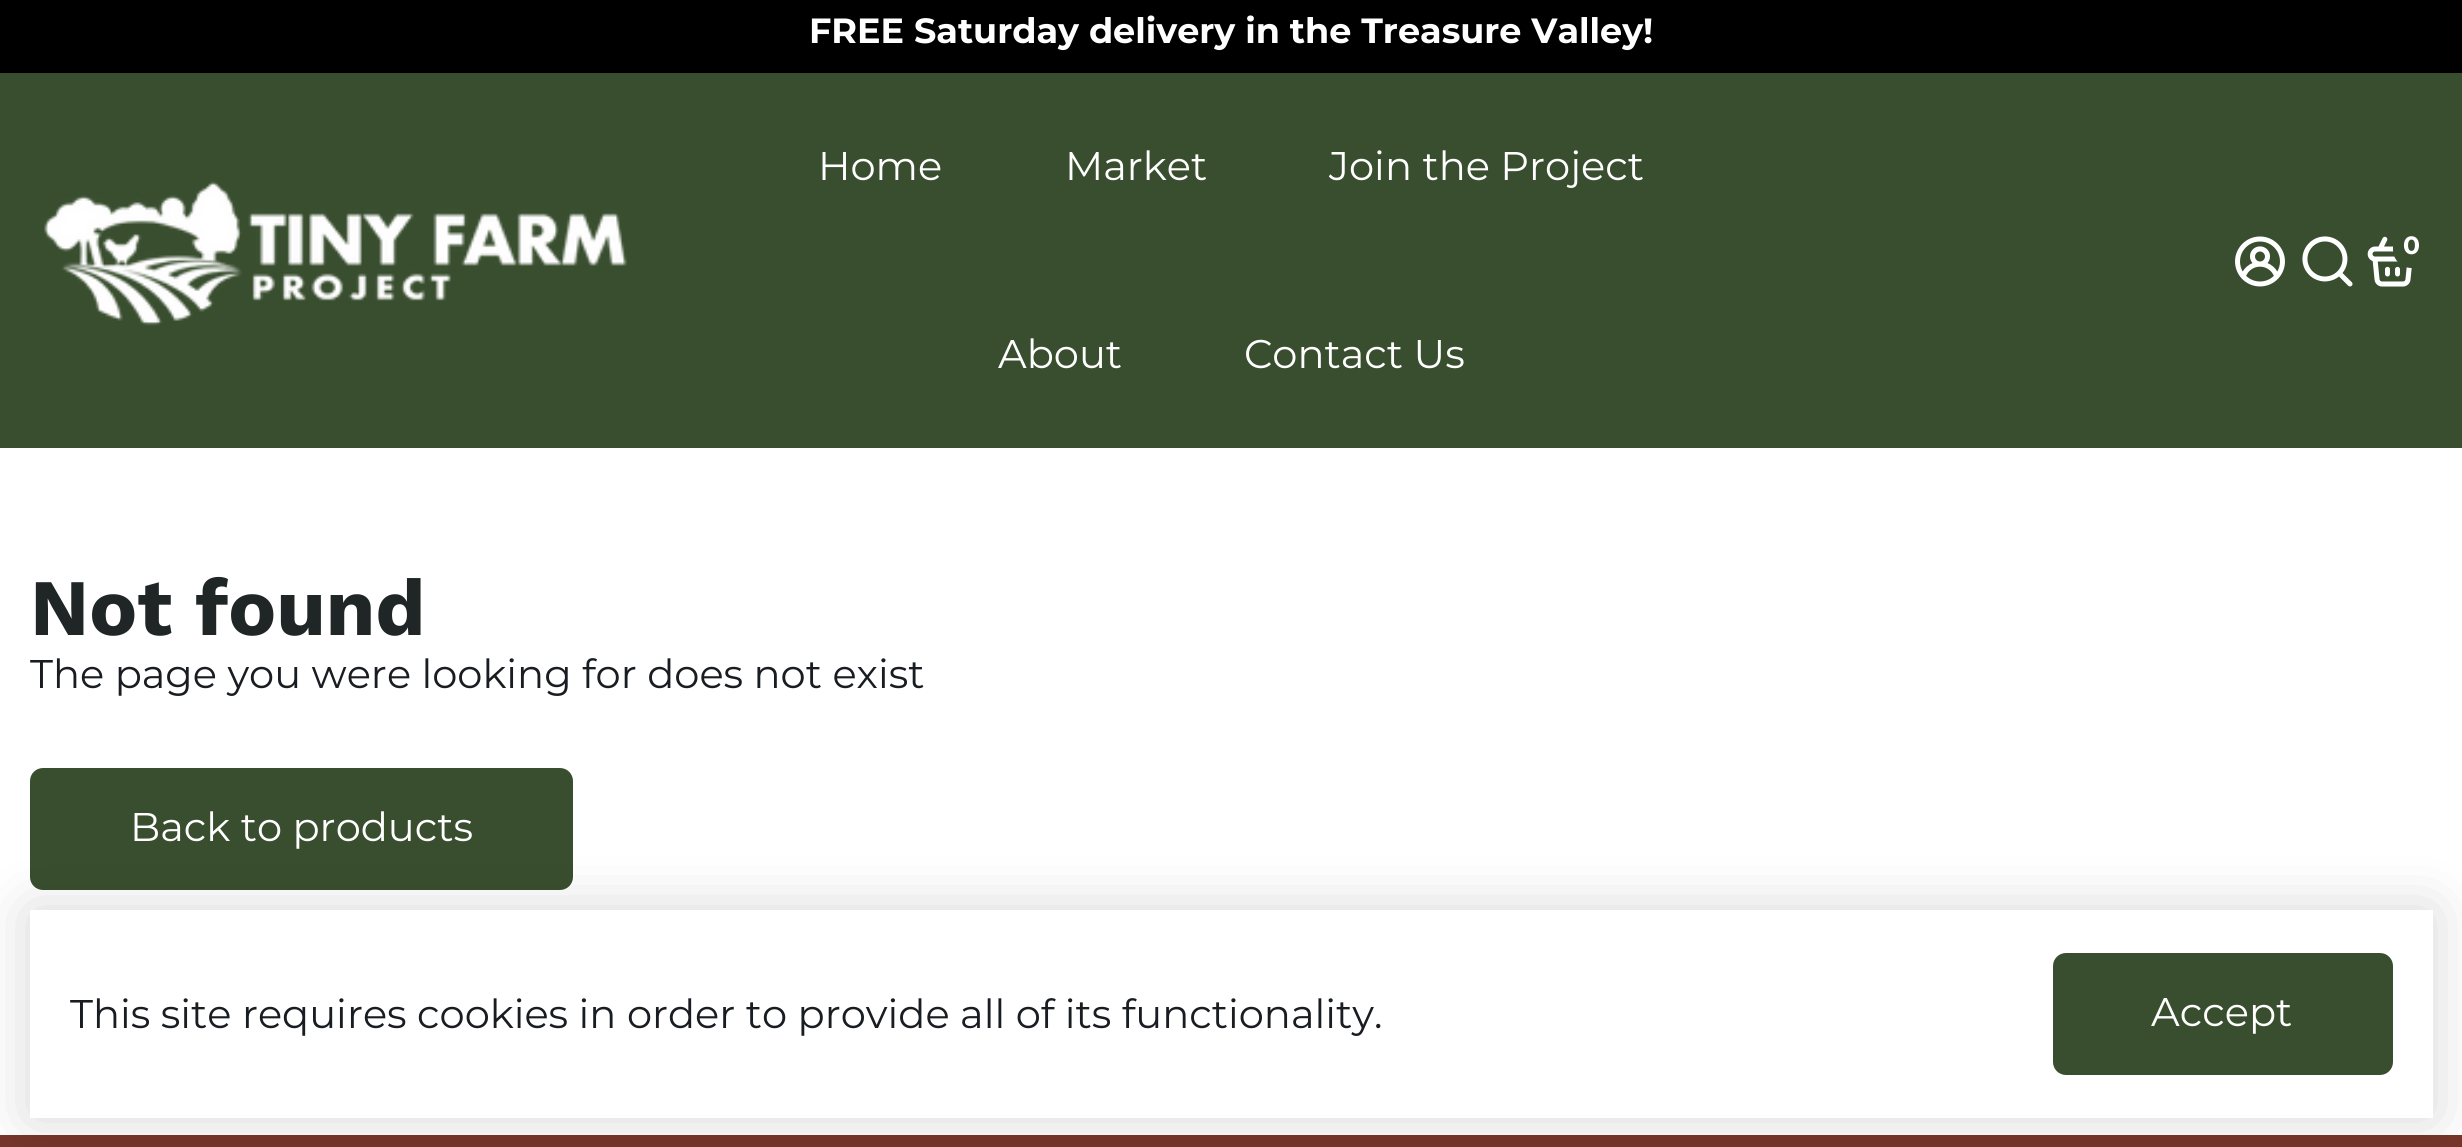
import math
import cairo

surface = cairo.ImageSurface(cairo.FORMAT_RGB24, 2462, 1147)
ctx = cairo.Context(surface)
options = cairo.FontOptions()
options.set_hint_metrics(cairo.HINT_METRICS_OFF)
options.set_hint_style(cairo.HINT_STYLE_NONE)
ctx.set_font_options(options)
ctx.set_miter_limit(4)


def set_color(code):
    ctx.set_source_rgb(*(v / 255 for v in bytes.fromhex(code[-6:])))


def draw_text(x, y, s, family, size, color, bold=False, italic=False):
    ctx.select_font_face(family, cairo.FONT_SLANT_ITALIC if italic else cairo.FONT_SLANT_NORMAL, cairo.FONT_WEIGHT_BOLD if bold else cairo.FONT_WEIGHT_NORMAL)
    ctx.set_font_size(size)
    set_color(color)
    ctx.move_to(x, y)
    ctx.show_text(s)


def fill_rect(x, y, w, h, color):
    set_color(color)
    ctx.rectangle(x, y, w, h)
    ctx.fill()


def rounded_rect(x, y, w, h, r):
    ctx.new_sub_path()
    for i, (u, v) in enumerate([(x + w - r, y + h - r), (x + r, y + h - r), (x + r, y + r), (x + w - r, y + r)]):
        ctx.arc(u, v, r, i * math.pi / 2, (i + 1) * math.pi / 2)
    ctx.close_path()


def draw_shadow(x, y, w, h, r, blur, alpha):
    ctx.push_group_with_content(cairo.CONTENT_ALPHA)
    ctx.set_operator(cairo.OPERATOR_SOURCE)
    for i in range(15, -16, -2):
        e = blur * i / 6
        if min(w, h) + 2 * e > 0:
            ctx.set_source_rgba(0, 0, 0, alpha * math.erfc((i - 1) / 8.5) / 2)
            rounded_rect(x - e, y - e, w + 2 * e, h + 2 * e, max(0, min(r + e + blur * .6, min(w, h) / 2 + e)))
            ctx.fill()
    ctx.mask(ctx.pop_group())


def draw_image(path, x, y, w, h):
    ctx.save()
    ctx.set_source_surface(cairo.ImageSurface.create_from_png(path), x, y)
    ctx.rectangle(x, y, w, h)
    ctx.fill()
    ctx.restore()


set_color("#ffffff")
ctx.paint()
fill_rect(0, 0, 2462, 73, "#000000")
draw_text(809, 43, "FREE Saturday delivery in the Treasure Valley!", "Montserrat", 35, "#ffffff", bold=True)
fill_rect(0, 73, 2462, 375, "#394e2f")
draw_image("assets/img1.png", 44, 181, 583, 145)
draw_text(818, 180, "Home", "Montserrat", 40, "#ffffff")
draw_text(1065, 180, "Market", "Montserrat", 40, "#ffffff")
draw_text(1329, 180, "Join the Project", "Montserrat", 40, "#ffffff")
draw_text(998, 368, "About", "Montserrat", 40, "#ffffff")
draw_text(1244, 368, "Contact Us", "Montserrat", 40, "#ffffff")
draw_image("assets/img2.png", 2235, 236, 50, 51)
draw_image("assets/img3.png", 2302, 236, 51, 51)
draw_image("assets/img4.png", 2367, 236, 45, 51)
set_color("#394e2f")
rounded_rect(2393, 225, 37, 43, 18.5)
ctx.fill()
draw_text(2403, 254, "0", "Montserrat", 25, "#ffffff", bold=True)
draw_text(30, 635, "Not found", "Work Sans", 80, "#202626", bold=True)
draw_text(30, 688, "The page you were looking for does not exist", "Montserrat", 40, "#191d21")
set_color("#394e2f")
rounded_rect(30, 768, 543, 122, 13)
ctx.fill()
draw_text(130, 841, "Back to products", "Montserrat", 40, "#ffffff")
fill_rect(0, 1135, 2462, 12, "#77362a")
set_color("#000000")
draw_shadow(30, 910, 2403, 208, 0, 30, 0.16)
fill_rect(30, 910, 2403, 208, "#ffffff")
draw_text(70, 1028, "This site requires cookies in order to provide all of its functionality.", "Montserrat", 40, "#191d21")
set_color("#394e2f")
rounded_rect(2053, 953, 340, 122, 13)
ctx.fill()
draw_text(2151, 1026, "Accept", "Montserrat", 40, "#ffffff")
surface.write_to_png("output.png")
